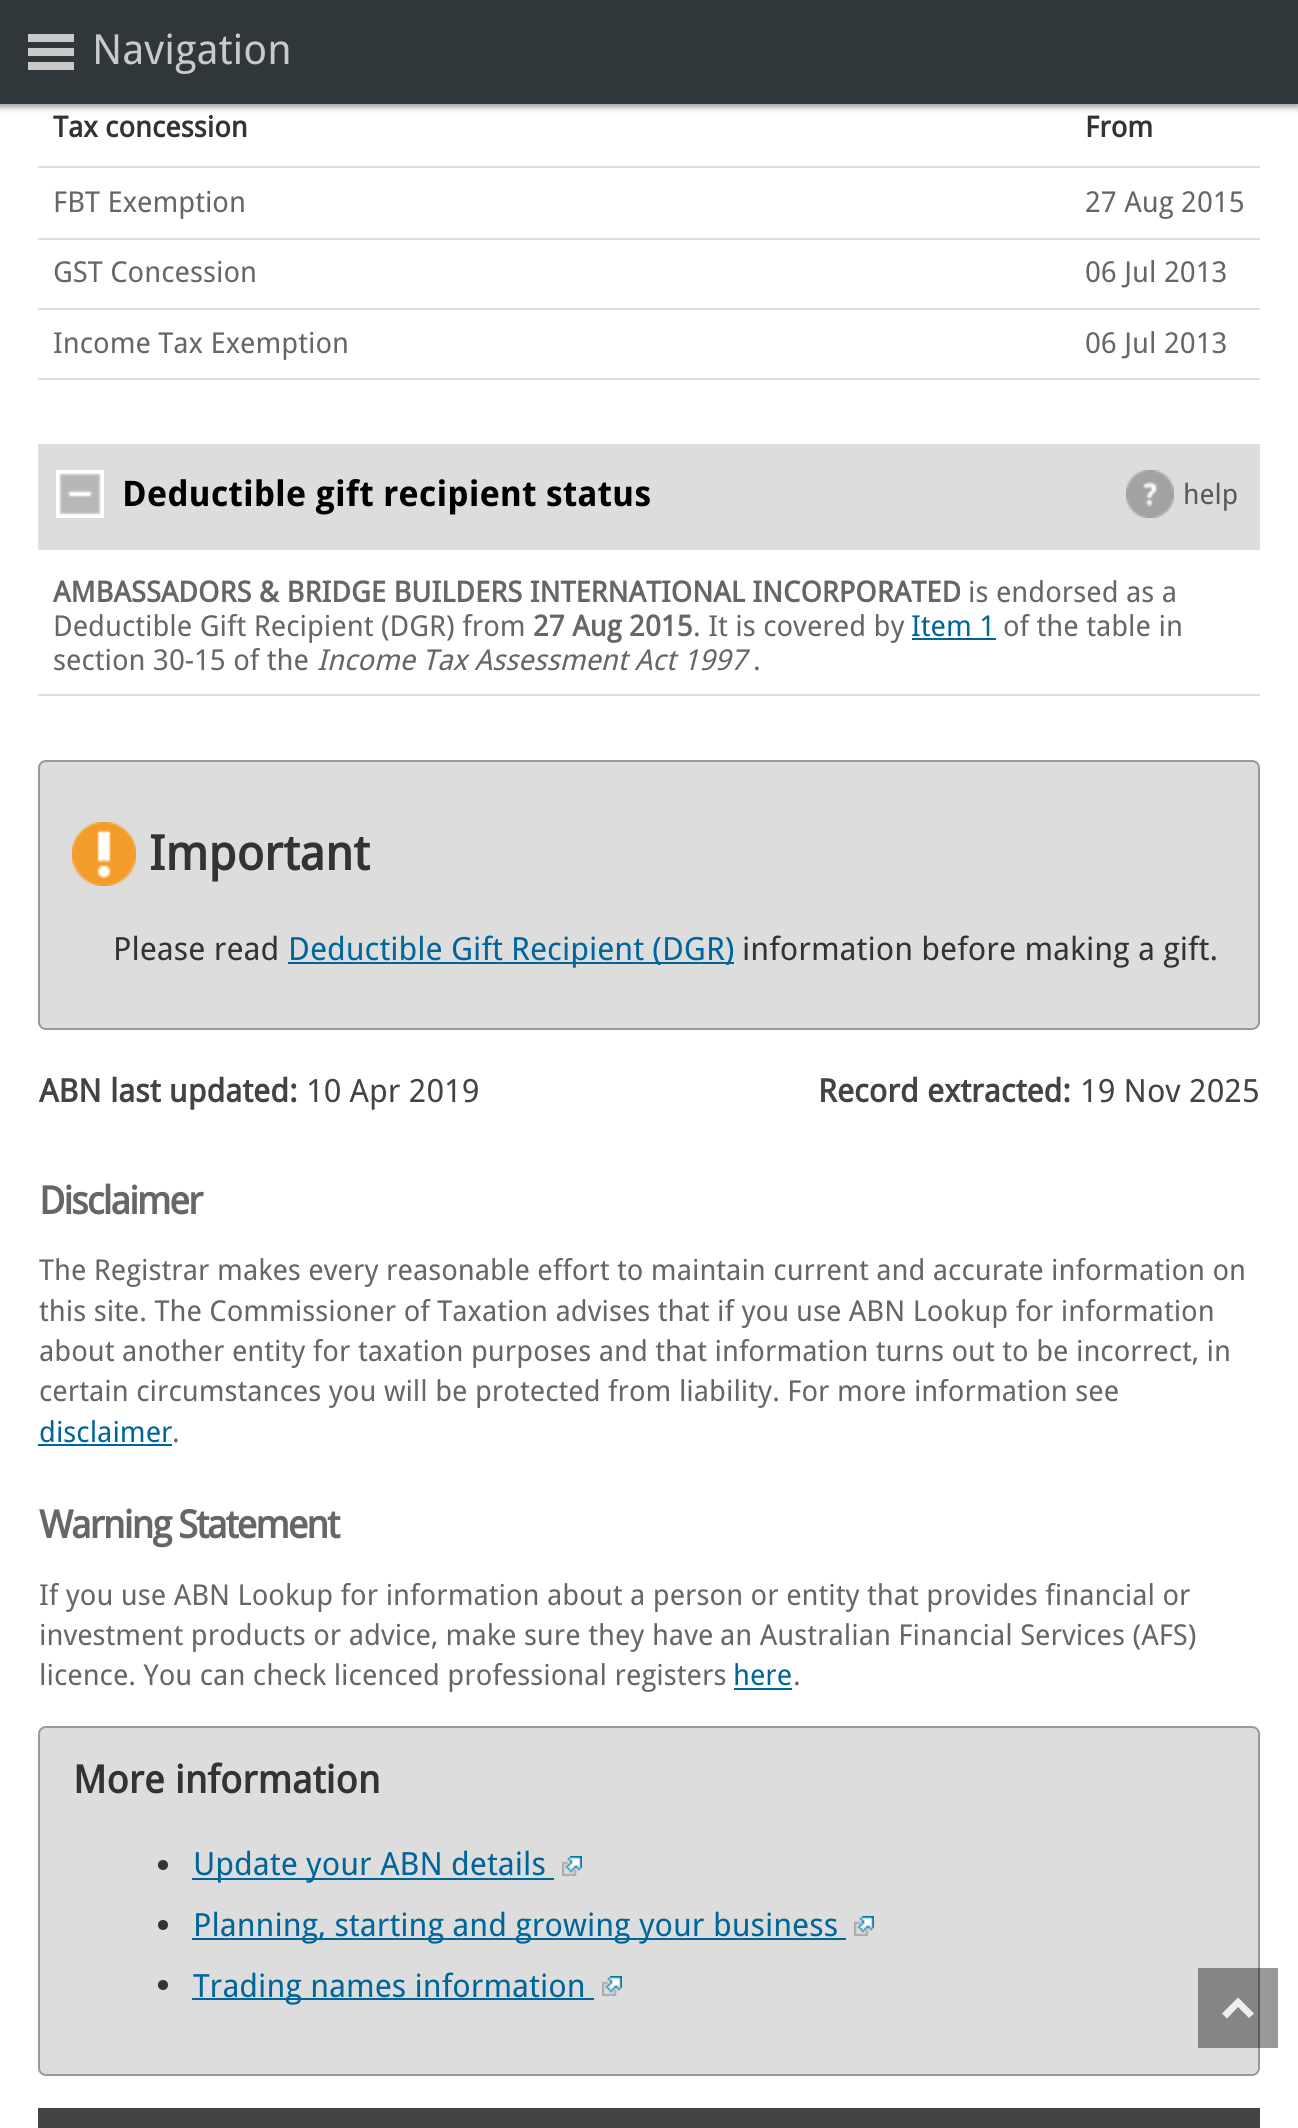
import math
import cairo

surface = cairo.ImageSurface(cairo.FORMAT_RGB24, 1298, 2128)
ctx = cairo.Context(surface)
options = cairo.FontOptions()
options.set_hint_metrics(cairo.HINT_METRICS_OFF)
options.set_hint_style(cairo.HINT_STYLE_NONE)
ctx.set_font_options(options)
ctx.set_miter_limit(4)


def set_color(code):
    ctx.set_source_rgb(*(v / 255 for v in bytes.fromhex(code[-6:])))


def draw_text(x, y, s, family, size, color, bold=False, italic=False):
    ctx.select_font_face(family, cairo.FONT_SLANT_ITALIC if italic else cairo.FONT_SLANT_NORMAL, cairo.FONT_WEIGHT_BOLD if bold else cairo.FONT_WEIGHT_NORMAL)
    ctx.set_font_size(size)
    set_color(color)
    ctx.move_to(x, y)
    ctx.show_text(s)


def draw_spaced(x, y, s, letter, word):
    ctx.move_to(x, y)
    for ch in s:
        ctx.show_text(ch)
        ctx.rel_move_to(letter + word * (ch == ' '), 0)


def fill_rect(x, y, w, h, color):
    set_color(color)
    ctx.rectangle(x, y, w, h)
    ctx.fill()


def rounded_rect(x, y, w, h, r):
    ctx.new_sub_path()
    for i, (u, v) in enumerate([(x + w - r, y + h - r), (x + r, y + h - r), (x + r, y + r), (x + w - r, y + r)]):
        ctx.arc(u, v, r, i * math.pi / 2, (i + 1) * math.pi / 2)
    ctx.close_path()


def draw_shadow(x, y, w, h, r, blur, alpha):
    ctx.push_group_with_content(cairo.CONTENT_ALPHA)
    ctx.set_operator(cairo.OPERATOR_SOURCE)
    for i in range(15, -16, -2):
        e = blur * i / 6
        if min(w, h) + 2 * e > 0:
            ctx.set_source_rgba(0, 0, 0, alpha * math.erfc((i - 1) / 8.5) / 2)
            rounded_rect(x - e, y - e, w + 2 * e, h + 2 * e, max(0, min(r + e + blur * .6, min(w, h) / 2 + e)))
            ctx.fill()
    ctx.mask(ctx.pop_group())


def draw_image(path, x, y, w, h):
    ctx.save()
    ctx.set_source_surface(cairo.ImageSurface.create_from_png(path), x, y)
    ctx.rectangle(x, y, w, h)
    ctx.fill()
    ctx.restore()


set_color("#ffffff")
ctx.paint()
set_color("#000000")
draw_shadow(-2, 2, 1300, 104, 0, 4, 0.5)
fill_rect(0, 0, 1298, 104, "#2f373a")
fill_rect(28, 34, 46, 8, "#c9c9c9")
fill_rect(28, 48, 46, 8, "#c9c9c9")
fill_rect(28, 62, 46, 8, "#c9c9c9")
draw_text(92, 64, "Navigation", "Droid Sans", 41.5, "#c9c9c9")
draw_text(53, 137, "Tax concession", "Droid Sans", 28.8, "#333333", bold=True)
fill_rect(38, 166, 1222, 2, "#dddddd")
draw_text(1085, 137, "From", "Droid Sans", 28.8, "#333333", bold=True)
draw_text(53, 212, "FBT Exemption", "Droid Sans", 28.8, "#666666")
fill_rect(38, 238, 1222, 2, "#dddddd")
draw_text(1085, 212, "27 Aug 2015", "Droid Sans", 28.8, "#666666")
draw_text(53, 282, "GST Concession", "Droid Sans", 28.8, "#666666")
fill_rect(38, 308, 1222, 2, "#dddddd")
draw_text(1085, 282, "06 Jul 2013", "Droid Sans", 28.8, "#666666")
draw_text(53, 353, "Income Tax Exemption", "Droid Sans", 28.8, "#666666")
fill_rect(38, 378, 1222, 2, "#dddddd")
draw_text(1085, 353, "06 Jul 2013", "Droid Sans", 28.8, "#666666")
fill_rect(38, 444, 1222, 106, "#dddddd")
draw_image("assets/img1.png", 56, 470, 48, 48)
draw_text(122, 506, "Deductible gift recipient status", "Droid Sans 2", 35.25, "#000000", bold=True)
draw_image("assets/img2.png", 1126, 470, 48, 48)
draw_text(1183, 504, "help", "Droid Sans", 28, "#5a595a")
fill_rect(38, 694, 1222, 2, "#dddddd")
draw_text(53, 602, "AMBASSADORS & BRIDGE BUILDERS INTERNATIONAL INCORPORATED", "Droid Sans", 28.8, "#666666", bold=True)
draw_text(968, 602, "is endorsed as a", "Droid Sans", 28.8, "#666666")
draw_text(53, 636, "Deductible Gift Recipient (DGR) from", "Droid Sans", 28.8, "#666666")
draw_text(533, 636, "27 Aug 2015", "Droid Sans", 28.8, "#666666", bold=True)
draw_text(693, 636, ". It is covered by", "Droid Sans", 28.8, "#666666")
draw_text(911, 636, "Item 1", "Droid Sans", 28.8, "#006699")
fill_rect(912, 638, 84, 2, "#006699")
draw_text(1003, 636, "of the table in", "Droid Sans", 28.8, "#666666")
draw_text(53, 670, "section 30-15 of the", "Droid Sans", 28.8, "#666666")
draw_text(317, 670, "Income Tax Assessment Act 1997", "Droid Sans", 28.8, "#666666", italic=True)
draw_text(753, 670, ".", "Droid Sans", 28.8, "#666666")
set_color("#dddddd")
rounded_rect(39, 761, 1220, 268, 7)
ctx.fill_preserve()
set_color("#999999")
ctx.stroke()
draw_image("assets/img3.png", 72, 822, 64, 64)
draw_text(149, 870, "Important", "Droid Sans", 48, "#333333", bold=True)
draw_text(113, 960, "Please read", "Droid Sans", 32, "#333333")
fill_rect(288, 962, 446, 2, "#006699")
draw_text(288, 960, "Deductible Gift Recipient (DGR)", "Droid Sans", 32, "#006699")
draw_text(742, 960, "information before making a gift.", "Droid Sans", 32, "#333333")
draw_text(39, 1102, "ABN last updated:", "Droid Sans", 32, "#434341", bold=True)
draw_text(306, 1102, "10 Apr 2019", "Droid Sans", 32, "#434341")
draw_text(818, 1102, "Record extracted:", "Droid Sans", 32, "#434341", bold=True)
draw_text(1080, 1102, "19 Nov 2025", "Droid Sans", 32, "#434341")
ctx.select_font_face("Droid Sans", cairo.FONT_SLANT_NORMAL, cairo.FONT_WEIGHT_BOLD)
ctx.set_font_size(38.5)
set_color("#666666")
draw_spaced(39, 1214, "Disclaimer", -2, 0)
draw_text(39, 1280, "The Registrar makes every reasonable effort to maintain current and accurate information on", "Droid Sans", 28.8, "#666666")
draw_text(39, 1321, "this site. The Commissioner of Taxation advises that if you", "Droid Sans", 28.8, "#666666")
draw_text(796, 1321, "use ABN Lookup for information", "Droid Sans", 28.8, "#666666")
draw_text(39, 1361, "about another entity for taxation purposes and that information turns out to be incorrect, in", "Droid Sans", 28.8, "#666666")
draw_text(39, 1401, "certain circumstances you will be protected from liability. For more information see", "Droid Sans", 28.8, "#666666")
draw_text(39, 1442, "disclaimer", "Droid Sans", 28.8, "#006699")
fill_rect(38, 1444, 134, 2, "#006699")
draw_text(172, 1442, ".", "Droid Sans", 28.8, "#666666")
ctx.select_font_face("Droid Sans", cairo.FONT_SLANT_NORMAL, cairo.FONT_WEIGHT_BOLD)
ctx.set_font_size(38.5)
draw_spaced(39, 1538, "Warning Statement", -2, 0)
draw_text(39, 1605, "If you use ABN Lookup for information about a person or entity that provides financial or", "Droid Sans", 28.8, "#666666")
draw_text(39, 1645, "investment products or advice, make sure they have", "Droid Sans", 28.8, "#666666")
draw_text(720, 1645, "an Australian Financial Services (AFS)", "Droid Sans", 28.8, "#666666")
draw_text(39, 1685, "licence. You can check licenced professional registers", "Droid Sans", 28.8, "#666666")
draw_text(733, 1685, "here", "Droid Sans", 28.8, "#006699")
fill_rect(734, 1688, 58, 2, "#006699")
draw_text(793, 1685, ".", "Droid Sans", 28.8, "#666666")
set_color("#dddddd")
rounded_rect(39, 1727, 1220, 348, 7)
ctx.fill_preserve()
set_color("#999999")
ctx.stroke()
draw_text(73, 1793, "More information", "Droid Sans", 38.5, "#333333", bold=True)
ctx.new_path()
ctx.arc(163, 1865, 5, 0, 2 * math.pi)
ctx.fill()
fill_rect(192, 1878, 362, 2, "#006699")
draw_text(193, 1875, "Update your ABN details", "Droid Sans", 32, "#006699")
draw_image("assets/img4.png", 562, 1856, 20, 20)
set_color("#333333")
ctx.arc(163, 1925, 5, 0, 2 * math.pi)
ctx.fill()
fill_rect(192, 1938, 654, 2, "#006699")
draw_text(193, 1936, "Planning, starting and growing your business", "Droid Sans", 32, "#006699")
draw_image("assets/img4.png", 854, 1916, 20, 20)
set_color("#333333")
ctx.arc(163, 1985, 5, 0, 2 * math.pi)
ctx.fill()
fill_rect(192, 1998, 402, 2, "#006699")
draw_text(193, 1997, "Trading names information", "Droid Sans", 32, "#006699")
draw_image("assets/img4.png", 602, 1976, 20, 20)
ctx.set_source_rgba(0, 0, 0, 0.4)
ctx.rectangle(1198, 1968, 80, 80)
ctx.fill()
set_color("#eeeeee")
ctx.new_path()
ctx.move_to(1238, 1997.5)
ctx.line_to(1254, 2013.5)
ctx.line_to(1249, 2018)
ctx.line_to(1238, 2007)
ctx.line_to(1227, 2018.5)
ctx.line_to(1222, 2013.5)
ctx.close_path()
ctx.fill()
fill_rect(38, 2108, 1222, 20, "#434341")
surface.write_to_png("output.png")
